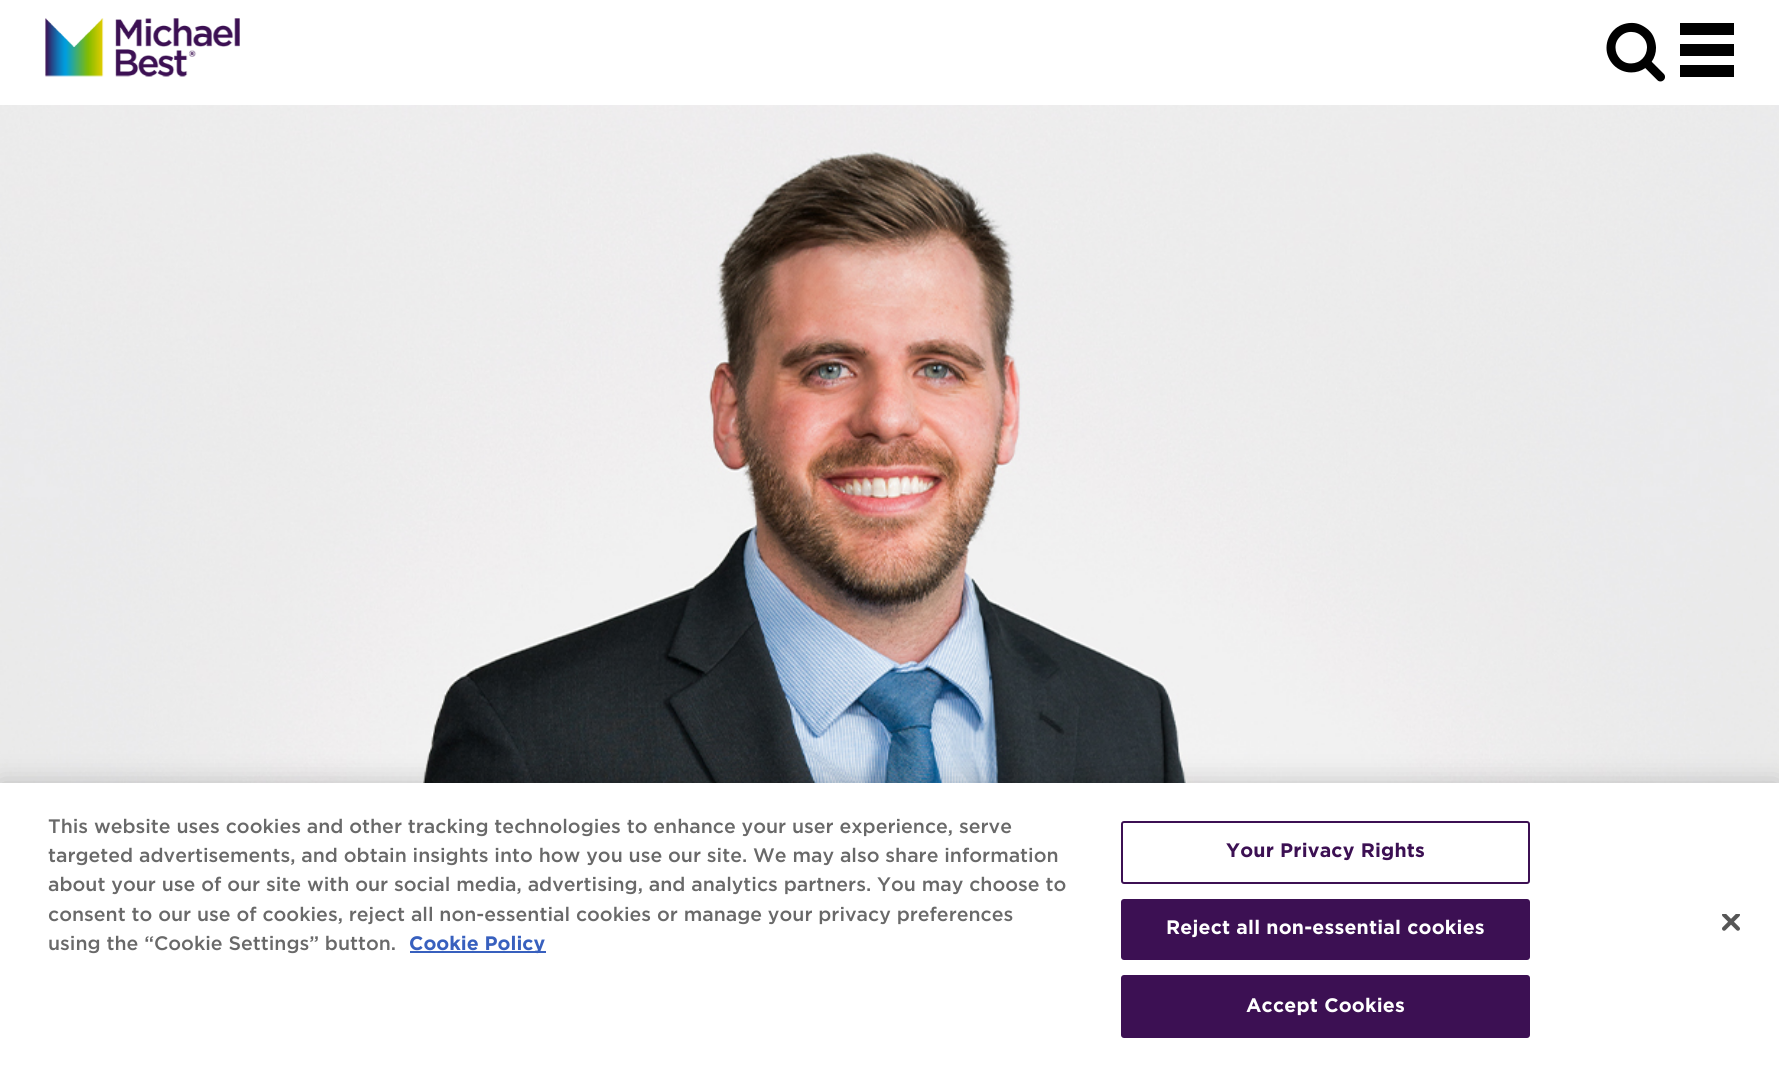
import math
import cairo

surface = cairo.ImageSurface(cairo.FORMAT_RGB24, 1779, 1067)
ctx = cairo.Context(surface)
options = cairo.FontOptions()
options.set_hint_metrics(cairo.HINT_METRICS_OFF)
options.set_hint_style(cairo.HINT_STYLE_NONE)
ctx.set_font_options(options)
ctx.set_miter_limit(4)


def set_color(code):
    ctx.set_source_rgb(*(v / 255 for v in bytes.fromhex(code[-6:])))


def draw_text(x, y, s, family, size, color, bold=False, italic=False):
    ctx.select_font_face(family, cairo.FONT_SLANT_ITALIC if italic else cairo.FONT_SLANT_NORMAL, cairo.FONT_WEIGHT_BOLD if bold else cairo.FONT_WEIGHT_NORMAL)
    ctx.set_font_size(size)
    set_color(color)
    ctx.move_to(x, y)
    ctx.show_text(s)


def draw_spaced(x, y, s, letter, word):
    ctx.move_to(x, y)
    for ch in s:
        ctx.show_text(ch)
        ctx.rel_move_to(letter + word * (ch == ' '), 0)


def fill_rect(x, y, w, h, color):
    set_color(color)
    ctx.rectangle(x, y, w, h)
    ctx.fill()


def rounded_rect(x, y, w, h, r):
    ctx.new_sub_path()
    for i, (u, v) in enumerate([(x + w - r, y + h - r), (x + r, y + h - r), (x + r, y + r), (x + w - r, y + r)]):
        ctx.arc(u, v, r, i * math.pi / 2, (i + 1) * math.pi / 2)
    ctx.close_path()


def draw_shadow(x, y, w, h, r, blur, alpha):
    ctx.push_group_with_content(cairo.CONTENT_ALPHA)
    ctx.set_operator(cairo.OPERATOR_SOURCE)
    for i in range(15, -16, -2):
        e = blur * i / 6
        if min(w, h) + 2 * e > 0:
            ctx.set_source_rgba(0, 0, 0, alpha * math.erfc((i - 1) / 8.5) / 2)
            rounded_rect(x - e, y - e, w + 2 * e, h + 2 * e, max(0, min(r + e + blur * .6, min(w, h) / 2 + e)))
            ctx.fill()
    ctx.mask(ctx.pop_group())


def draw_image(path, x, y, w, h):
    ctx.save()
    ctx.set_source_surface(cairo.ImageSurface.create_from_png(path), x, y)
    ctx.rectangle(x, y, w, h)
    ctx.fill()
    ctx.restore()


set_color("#ffffff")
ctx.paint()
draw_image("assets/img1.png", 45, 18, 195, 59)
draw_image("assets/img2.png", 1606, 22, 59, 60)
fill_rect(1680, 23, 54, 12, "#000000")
fill_rect(1680, 44, 54, 12, "#000000")
fill_rect(1680, 65, 54, 12, "#000000")
draw_image("assets/img3.png", 0, 105, 1779, 678)
set_color("#000000")
draw_shadow(0, 783, 1779, 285, 0, 13.5, 0.2)
fill_rect(0, 783, 1779, 284, "#ffffff")
draw_text(48, 833, "This website uses cookies and other tracking technologies to enhance your user experience, serve", "Gotham Medium", 19.5, "#696969")
draw_text(48, 862, "targeted advertisements, and obtain insights into how you use our site. We may also share information", "Gotham Medium", 19.5, "#696969")
draw_text(48, 891, "about your use of our site with our social media, advertising, and analytics partners. You may choose to", "Gotham Medium", 19.5, "#696969")
draw_text(48, 921, "consent to our use of cookies, reject all non-essential cookies or manage your privacy preferences", "Gotham Medium", 19.5, "#696969")
draw_text(48, 950, "using the “Cookie Settings” button.", "Gotham Medium", 19.5, "#696969")
fill_rect(410, 951, 136, 2, "#3860be")
draw_text(409, 950, "Cookie Policy", "Gotham", 19.5, "#3860be", bold=True)
rounded_rect(1122, 822, 407, 61, 2)
set_color("#3c1053")
ctx.stroke()
draw_spaced(1226, 857, "Your Privacy Rights", 0.2, 0)
rounded_rect(1122, 900, 407, 59, 2)
ctx.fill_preserve()
ctx.stroke()
set_color("#ffffff")
draw_spaced(1166, 934, "Reject all non-essential cookies", 0.2, 0)
set_color("#3c1053")
rounded_rect(1122, 976, 407, 61, 2)
ctx.fill_preserve()
ctx.stroke()
set_color("#ffffff")
draw_spaced(1246, 1012, "Accept Cookies", 0.2, 0)
draw_image("assets/img4.png", 1722, 914, 18, 17)
surface.write_to_png("output.png")
